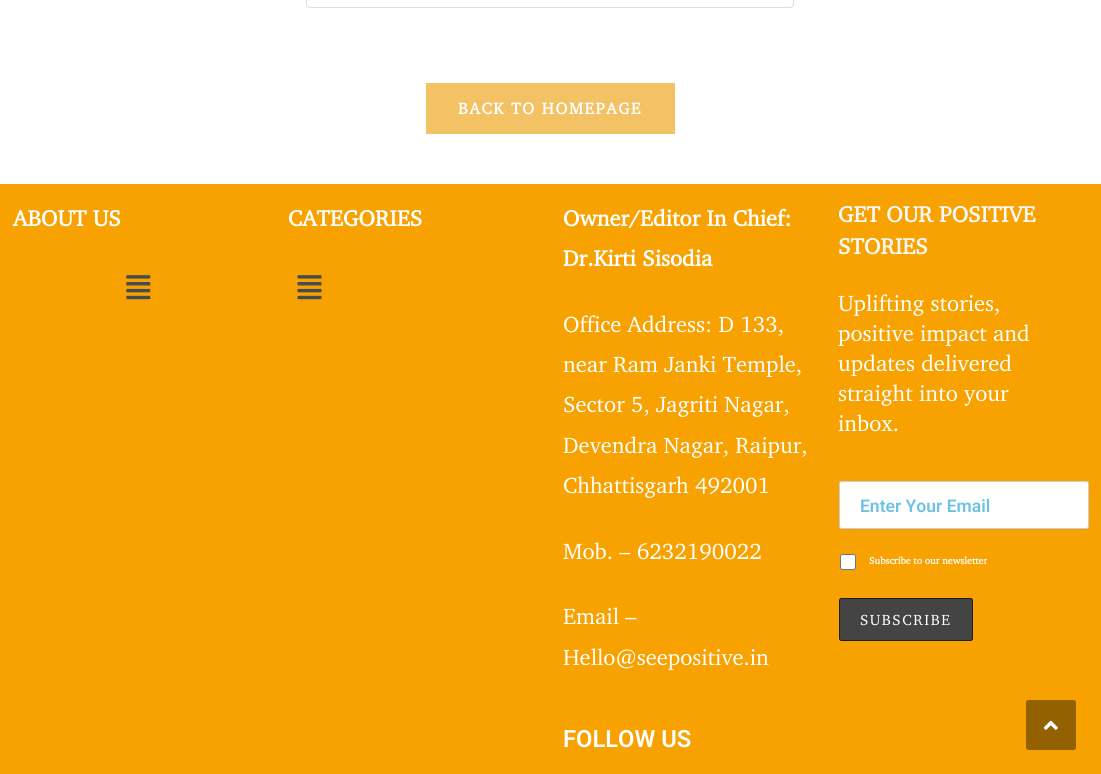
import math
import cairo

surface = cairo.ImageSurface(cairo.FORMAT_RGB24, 1101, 774)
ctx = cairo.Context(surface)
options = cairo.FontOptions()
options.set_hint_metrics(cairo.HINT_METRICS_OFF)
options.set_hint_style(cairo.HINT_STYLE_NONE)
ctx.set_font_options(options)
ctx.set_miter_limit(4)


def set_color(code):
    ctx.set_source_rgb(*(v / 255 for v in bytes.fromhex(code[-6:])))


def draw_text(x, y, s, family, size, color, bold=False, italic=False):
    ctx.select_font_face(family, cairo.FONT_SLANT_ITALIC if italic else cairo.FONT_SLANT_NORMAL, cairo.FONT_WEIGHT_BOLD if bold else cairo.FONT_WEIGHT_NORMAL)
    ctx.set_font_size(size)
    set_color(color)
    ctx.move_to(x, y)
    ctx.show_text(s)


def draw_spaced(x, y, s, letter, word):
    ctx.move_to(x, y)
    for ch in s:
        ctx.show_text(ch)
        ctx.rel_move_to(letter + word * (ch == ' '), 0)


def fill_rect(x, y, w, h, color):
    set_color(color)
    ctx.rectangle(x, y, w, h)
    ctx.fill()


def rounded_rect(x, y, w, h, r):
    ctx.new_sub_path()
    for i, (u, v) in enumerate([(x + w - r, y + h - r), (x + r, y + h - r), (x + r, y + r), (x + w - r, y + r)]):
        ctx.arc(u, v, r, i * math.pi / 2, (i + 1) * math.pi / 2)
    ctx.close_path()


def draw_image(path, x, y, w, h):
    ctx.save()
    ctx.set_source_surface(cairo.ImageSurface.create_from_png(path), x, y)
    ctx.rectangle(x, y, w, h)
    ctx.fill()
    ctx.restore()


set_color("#ffffff")
ctx.paint()
rounded_rect(306.5, -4.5, 487, 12, 3.5)
set_color("#dddddd")
ctx.set_line_width(1)
ctx.stroke()
fill_rect(426, 83, 249, 51, "#f3c264")
ctx.select_font_face("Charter", cairo.FONT_SLANT_NORMAL, cairo.FONT_WEIGHT_BOLD)
ctx.set_font_size(16.25)
set_color("#ffffff")
draw_spaced(458, 114, "BACK TO HOMEPAGE", 1.6, 0)
fill_rect(0, 184, 1101, 590, "#f7a200")
draw_text(13, 226, "ABOUT US", "Charter", 22.5, "#ffffff", bold=True)
draw_image("assets/img1.png", 126, 275, 25, 25)
draw_text(288, 226, "CATEGORIES", "Charter", 22.5, "#ffffff", bold=True)
draw_image("assets/img2.png", 297, 275, 25, 25)
draw_text(563, 226, "Owner/Editor In Chief:", "Charter", 22.5, "#ffffff", bold=True)
draw_text(563, 266, "Dr.Kirti Sisodia", "Charter", 22.5, "#ffffff", bold=True)
draw_text(563, 332, "Office Address: D 133,", "Charter", 22.5, "#ffffff")
draw_text(563, 372, "near Ram Janki Temple,", "Charter", 22.5, "#ffffff")
draw_text(563, 412, "Sector 5, Jagriti Nagar,", "Charter", 22.5, "#ffffff")
draw_text(563, 453, "Devendra Nagar, Raipur,", "Charter", 22.5, "#ffffff")
draw_text(563, 493, "Chhattisgarh 492001", "Charter", 22.5, "#ffffff")
draw_text(563, 559, "Mob. – 6232190022", "Charter", 22.5, "#ffffff")
draw_text(563, 624, "Email –", "Charter", 22.5, "#ffffff")
draw_text(563, 665, "Hello@seepositive.in", "Charter", 22.5, "#ffffff")
draw_text(563, 747, "FOLLOW US", "Roboto SemiBold", 23.75, "#ffffff")
draw_text(838, 222, "GET OUR POSITIVE", "Charter", 22.5, "#f9f9f9", bold=True)
draw_text(838, 254, "STORIES", "Charter", 22.5, "#f9f9f9", bold=True)
draw_text(838, 311, "Uplifting stories,", "Charter", 22.5, "#ffffff")
draw_text(838, 341, "positive impact and", "Charter", 22.5, "#ffffff")
draw_text(838, 371, "updates delivered", "Charter", 22.5, "#ffffff")
draw_text(838, 401, "straight into your", "Charter", 22.5, "#ffffff")
draw_text(838, 431, "inbox.", "Charter", 22.5, "#ffffff")
rounded_rect(839.5, 481.5, 249, 47, 2)
ctx.fill_preserve()
set_color("#cccccc")
ctx.stroke()
draw_text(860, 512, "Enter Your Email", "Roboto SemiBold", 17.5, "#6ec1e4")
set_color("#ffffff")
rounded_rect(840.5, 554.5, 15, 15, 2)
ctx.fill_preserve()
set_color("#767676")
ctx.stroke()
draw_text(869, 564, "Subscribe to our newsletter", "Charter", 9.9, "#ffffff", bold=True)
set_color("#444444")
rounded_rect(839.5, 598.5, 133, 42, 2)
ctx.fill_preserve()
set_color("#1e1e1e")
ctx.stroke()
ctx.select_font_face("Charter")
ctx.set_font_size(15)
set_color("#ffffff")
draw_spaced(860, 625, "SUBSCRIBE", 1.5, 0)
set_color("#946100")
rounded_rect(1026, 700, 50, 50, 2.5)
ctx.fill()
draw_image("assets/img3.png", 1043, 720, 15, 10)
surface.write_to_png("output.png")
